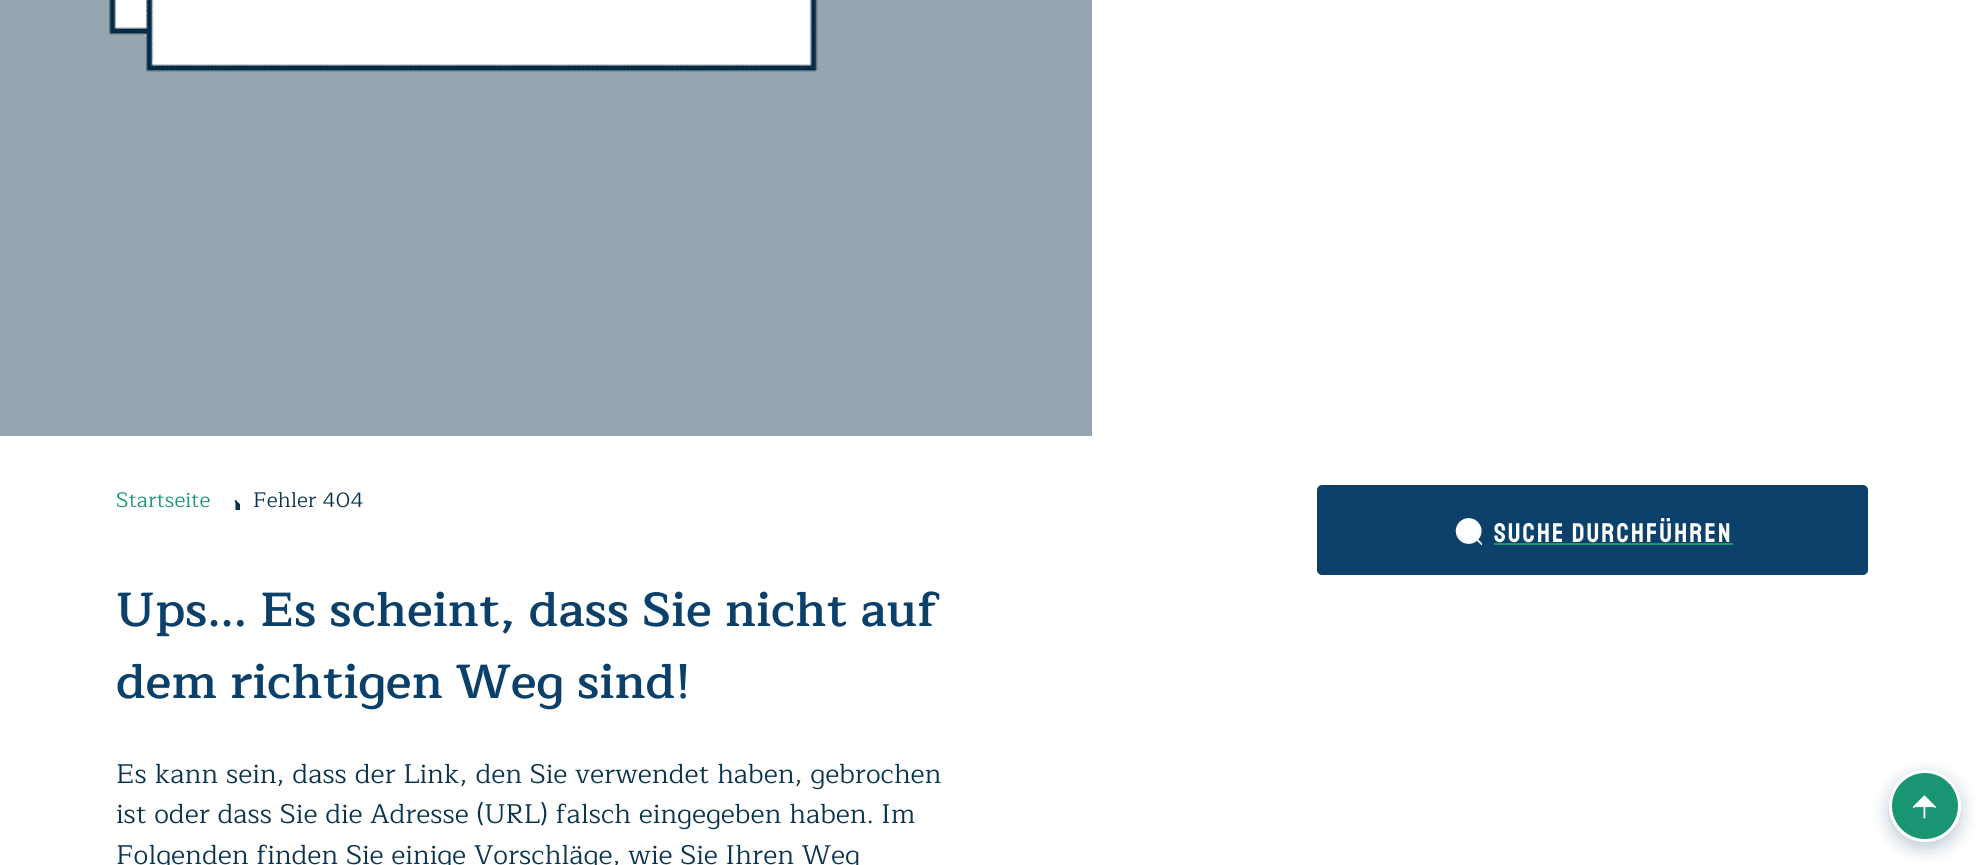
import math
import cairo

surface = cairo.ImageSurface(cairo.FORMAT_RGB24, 1984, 865)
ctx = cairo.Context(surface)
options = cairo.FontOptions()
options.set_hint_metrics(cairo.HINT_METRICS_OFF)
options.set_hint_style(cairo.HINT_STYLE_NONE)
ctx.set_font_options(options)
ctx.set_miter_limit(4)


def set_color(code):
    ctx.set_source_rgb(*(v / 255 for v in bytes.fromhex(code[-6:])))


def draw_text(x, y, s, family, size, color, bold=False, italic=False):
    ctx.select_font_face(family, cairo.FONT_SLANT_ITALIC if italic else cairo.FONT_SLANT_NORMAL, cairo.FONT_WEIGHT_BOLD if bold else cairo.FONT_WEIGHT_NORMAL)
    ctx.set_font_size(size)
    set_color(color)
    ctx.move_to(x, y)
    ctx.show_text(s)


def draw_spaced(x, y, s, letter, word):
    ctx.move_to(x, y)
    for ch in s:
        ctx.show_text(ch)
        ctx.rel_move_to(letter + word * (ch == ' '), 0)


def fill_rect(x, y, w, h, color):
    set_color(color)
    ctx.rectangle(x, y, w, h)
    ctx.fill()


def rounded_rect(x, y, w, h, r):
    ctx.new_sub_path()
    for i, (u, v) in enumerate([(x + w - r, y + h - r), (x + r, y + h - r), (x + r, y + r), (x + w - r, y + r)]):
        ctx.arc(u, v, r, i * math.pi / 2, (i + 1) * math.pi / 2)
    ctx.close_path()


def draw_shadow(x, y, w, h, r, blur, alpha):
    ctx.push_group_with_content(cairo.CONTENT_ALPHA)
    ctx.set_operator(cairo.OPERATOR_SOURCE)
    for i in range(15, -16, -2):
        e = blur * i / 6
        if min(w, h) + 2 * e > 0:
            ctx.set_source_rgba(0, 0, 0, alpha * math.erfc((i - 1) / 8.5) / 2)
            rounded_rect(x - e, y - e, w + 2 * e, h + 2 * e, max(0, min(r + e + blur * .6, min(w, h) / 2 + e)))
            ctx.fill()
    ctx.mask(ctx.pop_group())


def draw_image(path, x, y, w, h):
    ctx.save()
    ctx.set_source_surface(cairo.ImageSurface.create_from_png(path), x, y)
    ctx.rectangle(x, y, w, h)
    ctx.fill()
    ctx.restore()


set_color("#ffffff")
ctx.paint()
draw_image("assets/img1.png", 0, 0, 1092, 436)
draw_text(116, 507, "Startseite", "Maitree", 21, "#199573")
ctx.save()
ctx.rectangle(222, 492, 18, 18)
ctx.clip()
set_color("#0a334d")
ctx.new_path()
ctx.move_to(235.5, 519)
ctx.line_to(244.5, 510)
ctx.line_to(235.5, 501)
ctx.fill_preserve()
ctx.set_line_width(1.8)
ctx.set_line_cap(cairo.LINE_CAP_ROUND)
ctx.set_line_join(cairo.LINE_JOIN_ROUND)
ctx.stroke()
ctx.restore()
draw_text(253, 507, "Fehler 404", "Maitree", 21, "#0a334d")
set_color("#0a4069")
rounded_rect(1318, 486, 549, 88, 4)
ctx.fill_preserve()
ctx.stroke()
draw_image("assets/img2.png", 1455, 518, 27, 27)
ctx.select_font_face("Staatliches")
ctx.set_font_size(27)
set_color("#ffffff")
draw_spaced(1494, 542, "SUCHE DURCHFÜHREN", 2.2, 0)
fill_rect(1494, 543, 239, 2, "#199573")
draw_text(116, 626, "Ups... Es scheint, dass Sie nicht auf", "Maitree SemiBold", 48, "#0a4069")
draw_text(116, 698, "dem richtigen Weg sind!", "Maitree SemiBold", 48, "#0a4069")
draw_text(116, 783, "Es kann sein, dass der Link, den Sie verwendet haben, gebrochen", "Maitree", 27, "#0a334d")
draw_text(116, 823, "ist oder dass Sie die Adresse (URL) falsch eingegeben haben. Im", "Maitree", 27, "#0a334d")
draw_text(116, 864, "Folgenden finden Sie einige Vorschläge, wie Sie Ihren Weg", "Maitree", 27, "#0a334d")
set_color("#0a4069")
draw_shadow(1889, 776, 72, 72, 36, 9, 0.15)
ctx.arc(1925, 806, 34.5, 0, 2 * math.pi)
set_color("#ffffff")
ctx.set_line_width(3)
ctx.stroke()
set_color("#0a4069")
draw_shadow(1889, 776, 72, 72, 36, 9, 0.15)
set_color("#199573")
ctx.arc(1925, 806, 34.5, 0, 2 * math.pi)
ctx.fill_preserve()
set_color("#ffffff")
ctx.stroke()
draw_image("assets/img3.png", 1912, 795, 24, 24)
surface.write_to_png("output.png")
